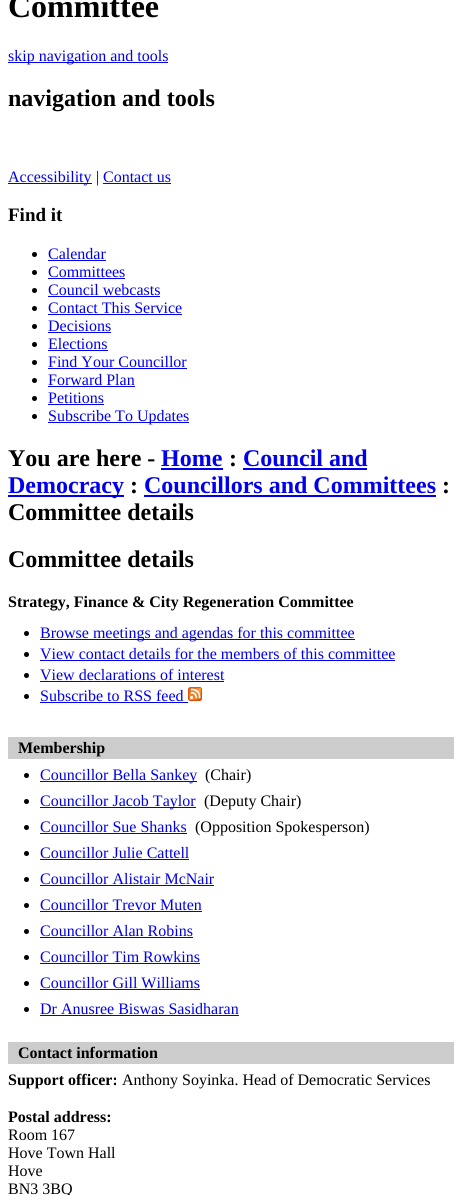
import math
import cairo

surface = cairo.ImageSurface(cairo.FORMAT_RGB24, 472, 1195)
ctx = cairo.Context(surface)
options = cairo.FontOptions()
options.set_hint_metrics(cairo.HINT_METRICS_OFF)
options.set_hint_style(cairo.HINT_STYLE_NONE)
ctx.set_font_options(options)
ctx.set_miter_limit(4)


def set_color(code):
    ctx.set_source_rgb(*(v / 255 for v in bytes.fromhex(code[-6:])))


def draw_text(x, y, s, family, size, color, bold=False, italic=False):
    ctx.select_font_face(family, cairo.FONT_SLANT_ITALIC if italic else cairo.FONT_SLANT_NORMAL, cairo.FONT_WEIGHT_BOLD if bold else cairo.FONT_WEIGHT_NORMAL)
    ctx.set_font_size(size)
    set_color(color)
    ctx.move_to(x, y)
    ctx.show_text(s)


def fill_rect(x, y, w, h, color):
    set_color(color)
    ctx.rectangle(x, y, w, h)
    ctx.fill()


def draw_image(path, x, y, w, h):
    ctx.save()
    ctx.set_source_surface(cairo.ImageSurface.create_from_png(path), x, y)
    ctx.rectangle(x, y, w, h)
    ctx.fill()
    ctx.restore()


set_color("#ffffff")
ctx.paint()
draw_text(8, 17, "Committee", "Liberation Serif", 32, "#000000", bold=True)
fill_rect(8, 62, 160, 1, "#0000ee")
draw_text(8, 61, "skip navigation and tools", "Liberation Serif", 16, "#0000ee")
draw_text(8, 106, "navigation and tools", "Liberation Serif", 24, "#000000", bold=True)
fill_rect(8, 183, 84, 1, "#0000ee")
draw_text(8, 182, "Accessibility", "Liberation Serif", 16, "#0000ee")
draw_text(96, 182, "|", "Liberation Serif", 16, "#000000")
draw_text(103, 182, "Contact us", "Liberation Serif", 16, "#0000ee")
fill_rect(103, 183, 68, 1, "#0000ee")
draw_text(8, 221, "Find it", "Liberation Serif", 19, "#000000", bold=True)
ctx.new_path()
ctx.arc(34.5, 254.5, 2.5, 0, 2 * math.pi)
ctx.fill()
draw_text(48, 259, "Calendar", "Liberation Serif", 16, "#0000ee")
fill_rect(48, 260, 58, 1, "#0000ee")
set_color("#000000")
ctx.new_path()
ctx.arc(34.5, 272.5, 2.5, 0, 2 * math.pi)
ctx.fill()
draw_text(48, 277, "Committees", "Liberation Serif", 16, "#0000ee")
fill_rect(48, 278, 77, 1, "#0000ee")
set_color("#000000")
ctx.new_path()
ctx.arc(34.5, 290.5, 2.5, 0, 2 * math.pi)
ctx.fill()
draw_text(48, 295, "Council webcasts", "Liberation Serif", 16, "#0000ee")
fill_rect(48, 296, 112, 1, "#0000ee")
set_color("#000000")
ctx.new_path()
ctx.arc(34.5, 308.5, 2.5, 0, 2 * math.pi)
ctx.fill()
draw_text(48, 313, "Contact This Service", "Liberation Serif", 16, "#0000ee")
fill_rect(48, 314, 134, 1, "#0000ee")
set_color("#000000")
ctx.new_path()
ctx.arc(34.5, 326.5, 2.5, 0, 2 * math.pi)
ctx.fill()
draw_text(48, 331, "Decisions", "Liberation Serif", 16, "#0000ee")
fill_rect(48, 332, 63, 1, "#0000ee")
set_color("#000000")
ctx.new_path()
ctx.arc(34.5, 344.5, 2.5, 0, 2 * math.pi)
ctx.fill()
draw_text(48, 349, "Elections", "Liberation Serif", 16, "#0000ee")
fill_rect(48, 350, 60, 1, "#0000ee")
set_color("#000000")
ctx.new_path()
ctx.arc(34.5, 362.5, 2.5, 0, 2 * math.pi)
ctx.fill()
draw_text(48, 367, "Find Your Councillor", "Liberation Serif", 16, "#0000ee")
fill_rect(48, 368, 139, 1, "#0000ee")
set_color("#000000")
ctx.new_path()
ctx.arc(34.5, 380.5, 2.5, 0, 2 * math.pi)
ctx.fill()
draw_text(48, 385, "Forward Plan", "Liberation Serif", 16, "#0000ee")
fill_rect(48, 386, 87, 1, "#0000ee")
set_color("#000000")
ctx.new_path()
ctx.arc(34.5, 398.5, 2.5, 0, 2 * math.pi)
ctx.fill()
draw_text(48, 403, "Petitions", "Liberation Serif", 16, "#0000ee")
fill_rect(48, 404, 56, 1, "#0000ee")
set_color("#000000")
ctx.new_path()
ctx.arc(34.5, 416.5, 2.5, 0, 2 * math.pi)
ctx.fill()
fill_rect(48, 422, 141, 1, "#0000ee")
draw_text(48, 421, "Subscribe To Updates", "Liberation Serif", 16, "#0000ee")
draw_text(8, 466, "You are here -", "Liberation Serif", 24, "#000000", bold=True)
draw_text(161, 466, "Home", "Liberation Serif", 24, "#0000ee", bold=True)
fill_rect(161, 468, 62, 2, "#0000ee")
draw_text(229, 466, ":", "Liberation Serif", 24, "#000000", bold=True)
draw_text(243, 466, "Council and", "Liberation Serif", 24, "#0000ee", bold=True)
fill_rect(243, 468, 124, 2, "#0000ee")
fill_rect(8, 495, 116, 2, "#0000ee")
draw_text(8, 493, "Democracy", "Liberation Serif", 24, "#0000ee", bold=True)
draw_text(130, 493, ":", "Liberation Serif", 24, "#000000", bold=True)
draw_text(144, 493, "Councillors and Committees", "Liberation Serif", 24, "#0000ee", bold=True)
fill_rect(144, 495, 292, 2, "#0000ee")
draw_text(442, 493, ":", "Liberation Serif", 24, "#000000", bold=True)
draw_text(8, 520, "Committee details", "Liberation Serif", 24, "#000000", bold=True)
draw_text(8, 567, "Committee details", "Liberation Serif", 24, "#000000", bold=True)
draw_text(8, 607, "Strategy, Finance & City Regeneration Committee", "Liberation Serif", 16, "#000000", bold=True)
ctx.new_path()
ctx.arc(26.5, 633.5, 2.5, 0, 2 * math.pi)
ctx.fill()
fill_rect(40, 639, 315, 1, "#0000ee")
draw_text(40, 638, "Browse meetings and agendas for this committee", "Liberation Serif", 16, "#0000ee")
set_color("#000000")
ctx.new_path()
ctx.arc(26.5, 654.5, 2.5, 0, 2 * math.pi)
ctx.fill()
draw_text(40, 659, "View contact details for the members of this committee", "Liberation Serif", 16, "#0000ee")
fill_rect(40, 660, 355, 1, "#0000ee")
set_color("#000000")
ctx.new_path()
ctx.arc(26.5, 675.5, 2.5, 0, 2 * math.pi)
ctx.fill()
draw_text(40, 680, "View declarations of interest", "Liberation Serif", 16, "#0000ee")
fill_rect(40, 681, 184, 1, "#0000ee")
set_color("#000000")
ctx.new_path()
ctx.arc(26.5, 696.5, 2.5, 0, 2 * math.pi)
ctx.fill()
draw_text(40, 701, "Subscribe to RSS feed", "Liberation Serif", 16, "#0000ee")
fill_rect(40, 702, 148, 1, "#0000ee")
draw_image("assets/img1.png", 188, 687, 14, 14)
fill_rect(8, 737, 446, 22, "#cccccc")
draw_text(18, 753, "Membership", "Liberation Serif", 16, "#000000", bold=True)
ctx.new_path()
ctx.arc(26.5, 775.5, 2.5, 0, 2 * math.pi)
ctx.fill()
fill_rect(40, 781, 157, 1, "#0000ee")
draw_text(40, 780, "Councillor Bella Sankey", "Liberation Serif", 16, "#0000ee")
draw_text(205, 780, "(Chair)", "Liberation Serif", 16, "#000000")
ctx.new_path()
ctx.arc(26.5, 801.5, 2.5, 0, 2 * math.pi)
ctx.fill()
fill_rect(40, 807, 156, 1, "#0000ee")
draw_text(40, 806, "Councillor Jacob Taylor", "Liberation Serif", 16, "#0000ee")
draw_text(204, 806, "(Deputy Chair)", "Liberation Serif", 16, "#000000")
ctx.new_path()
ctx.arc(26.5, 827.5, 2.5, 0, 2 * math.pi)
ctx.fill()
draw_text(40, 832, "Councillor Sue Shanks", "Liberation Serif", 16, "#0000ee")
fill_rect(40, 833, 147, 1, "#0000ee")
draw_text(195, 832, "(Opposition Spokesperson)", "Liberation Serif", 16, "#000000")
ctx.new_path()
ctx.arc(26.5, 853.5, 2.5, 0, 2 * math.pi)
ctx.fill()
draw_text(40, 858, "Councillor Julie Cattell", "Liberation Serif", 16, "#0000ee")
fill_rect(40, 859, 149, 1, "#0000ee")
set_color("#000000")
ctx.new_path()
ctx.arc(26.5, 879.5, 2.5, 0, 2 * math.pi)
ctx.fill()
draw_text(40, 884, "Councillor Alistair McNair", "Liberation Serif", 16, "#0000ee")
fill_rect(40, 885, 174, 1, "#0000ee")
set_color("#000000")
ctx.new_path()
ctx.arc(26.5, 905.5, 2.5, 0, 2 * math.pi)
ctx.fill()
draw_text(40, 910, "Councillor Trevor Muten", "Liberation Serif", 16, "#0000ee")
fill_rect(40, 911, 162, 1, "#0000ee")
set_color("#000000")
ctx.new_path()
ctx.arc(26.5, 931.5, 2.5, 0, 2 * math.pi)
ctx.fill()
draw_text(40, 936, "Councillor Alan Robins", "Liberation Serif", 16, "#0000ee")
fill_rect(40, 937, 153, 1, "#0000ee")
set_color("#000000")
ctx.new_path()
ctx.arc(26.5, 957.5, 2.5, 0, 2 * math.pi)
ctx.fill()
draw_text(40, 962, "Councillor Tim Rowkins", "Liberation Serif", 16, "#0000ee")
fill_rect(40, 963, 160, 1, "#0000ee")
set_color("#000000")
ctx.new_path()
ctx.arc(26.5, 983.5, 2.5, 0, 2 * math.pi)
ctx.fill()
draw_text(40, 988, "Councillor Gill Williams", "Liberation Serif", 16, "#0000ee")
fill_rect(40, 989, 160, 1, "#0000ee")
set_color("#000000")
ctx.new_path()
ctx.arc(26.5, 1009.5, 2.5, 0, 2 * math.pi)
ctx.fill()
draw_text(40, 1014, "Dr Anusree Biswas Sasidharan", "Liberation Serif", 16, "#0000ee")
fill_rect(40, 1015, 199, 1, "#0000ee")
fill_rect(8, 1042, 446, 22, "#cccccc")
draw_text(18, 1058, "Contact information", "Liberation Serif", 16, "#000000", bold=True)
draw_text(8, 1085, "Support officer:", "Liberation Serif", 16, "#000000", bold=True)
draw_text(122, 1085, "Anthony Soyinka. Head of Democratic Services", "Liberation Serif", 16, "#000000")
draw_text(8, 1122, "Postal address:", "Liberation Serif", 16, "#000000", bold=True)
draw_text(8, 1140, "Room 167", "Liberation Serif", 16, "#000000")
draw_text(8, 1158, "Hove Town Hall", "Liberation Serif", 16, "#000000")
draw_text(8, 1176, "Hove", "Liberation Serif", 16, "#000000")
draw_text(8, 1194, "BN3 3BQ", "Liberation Serif", 16, "#000000")
surface.write_to_png("output.png")
